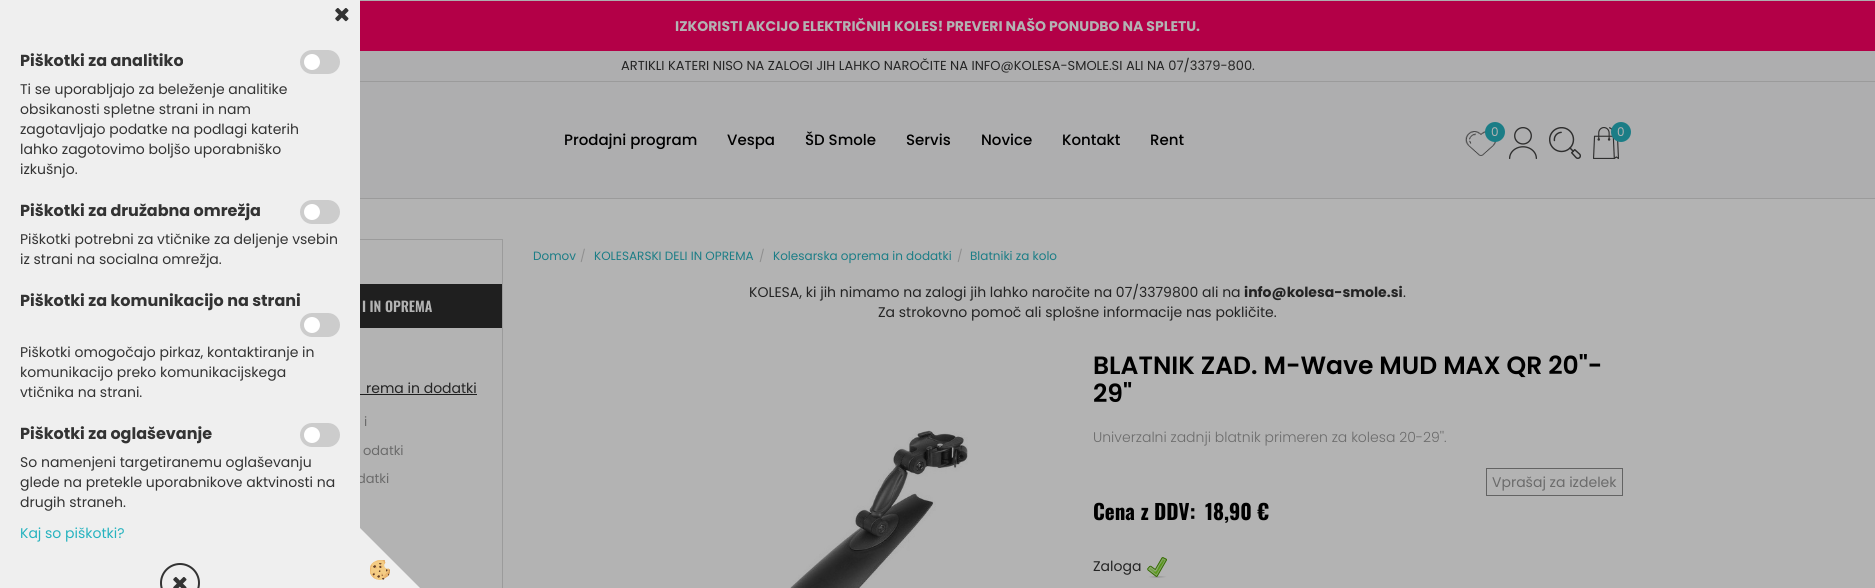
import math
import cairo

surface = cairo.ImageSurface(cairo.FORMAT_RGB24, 1875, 588)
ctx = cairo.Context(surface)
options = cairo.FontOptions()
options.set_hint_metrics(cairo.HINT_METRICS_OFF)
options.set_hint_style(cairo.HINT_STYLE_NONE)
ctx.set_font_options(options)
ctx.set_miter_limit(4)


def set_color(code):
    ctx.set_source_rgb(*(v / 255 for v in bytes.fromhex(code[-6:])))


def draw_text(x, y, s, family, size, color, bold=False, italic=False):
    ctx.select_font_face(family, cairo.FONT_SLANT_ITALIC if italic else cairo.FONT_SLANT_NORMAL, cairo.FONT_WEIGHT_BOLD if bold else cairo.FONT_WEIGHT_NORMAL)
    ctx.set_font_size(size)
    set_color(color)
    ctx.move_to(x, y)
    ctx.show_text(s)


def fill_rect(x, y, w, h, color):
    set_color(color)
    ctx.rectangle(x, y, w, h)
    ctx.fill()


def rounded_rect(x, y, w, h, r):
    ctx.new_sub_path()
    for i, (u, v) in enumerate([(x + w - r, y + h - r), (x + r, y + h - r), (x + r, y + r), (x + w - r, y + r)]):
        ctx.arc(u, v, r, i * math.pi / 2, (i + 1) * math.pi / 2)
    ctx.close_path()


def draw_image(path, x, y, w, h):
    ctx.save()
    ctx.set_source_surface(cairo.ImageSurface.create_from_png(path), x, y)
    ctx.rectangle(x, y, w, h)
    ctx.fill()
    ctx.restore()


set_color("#b3b3b3")
ctx.paint()
ctx.rectangle(253.5, 239.5, 249, 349)
set_color("#9b9b9b")
ctx.set_line_width(1)
ctx.stroke()
draw_text(357, 483, "datki", "Poppins", 13, "#6b6b6b")
fill_rect(0, 0, 360, 588, "#efefef")
draw_image("assets/img1.png", 335, 8, 14, 14)
draw_text(20, 66, "Piškotki za analitiko", "Poppins", 16, "#333333", bold=True)
set_color("#cccccc")
rounded_rect(300, 50, 40, 24, 12)
ctx.fill()
set_color("#ffffff")
ctx.arc(312, 62, 8, 0, 2 * math.pi)
ctx.fill()
draw_text(20, 94, "Ti se uporabljajo za beleženje analitike", "Poppins", 14, "#333333")
draw_text(20, 114, "obsikanosti spletne strani in nam", "Poppins", 14, "#333333")
draw_text(20, 134, "zagotavljajo podatke na podlagi katerih", "Poppins", 14, "#333333")
draw_text(20, 154, "lahko zagotovimo boljšo uporabniško", "Poppins", 14, "#333333")
draw_text(20, 174, "izkušnjo.", "Poppins", 14, "#333333")
draw_text(20, 216, "Piškotki za družabna omrežja", "Poppins", 16, "#333333", bold=True)
set_color("#cccccc")
rounded_rect(300, 200, 40, 24, 12)
ctx.fill()
set_color("#ffffff")
ctx.arc(312, 212, 8, 0, 2 * math.pi)
ctx.fill()
draw_text(20, 244, "Piškotki potrebni za vtičnike za deljenje vsebin", "Poppins", 14, "#333333")
draw_text(20, 264, "iz strani na socialna omrežja.", "Poppins", 14, "#333333")
draw_text(20, 306, "Piškotki za komunikacijo na strani", "Poppins", 16, "#333333", bold=True)
set_color("#cccccc")
rounded_rect(300, 313, 40, 24, 12)
ctx.fill()
set_color("#ffffff")
ctx.arc(312, 325, 8, 0, 2 * math.pi)
ctx.fill()
draw_text(20, 357, "Piškotki omogočajo pirkaz, kontaktiranje in", "Poppins", 14, "#333333")
draw_text(20, 377, "komunikacijo preko komunikacijskega", "Poppins", 14, "#333333")
draw_text(20, 397, "vtičnika na strani.", "Poppins", 14, "#333333")
draw_text(20, 439, "Piškotki za oglaševanje", "Poppins", 16, "#333333", bold=True)
set_color("#cccccc")
rounded_rect(300, 423, 40, 24, 12)
ctx.fill()
set_color("#ffffff")
ctx.arc(312, 435, 8, 0, 2 * math.pi)
ctx.fill()
draw_text(20, 467, "So namenjeni targetiranemu oglaševanju", "Poppins", 14, "#333333")
draw_text(20, 487, "glede na pretekle uporabnikove aktvinosti na", "Poppins", 14, "#333333")
draw_text(20, 507, "drugih straneh.", "Poppins", 14, "#333333")
draw_text(20, 538, "Kaj so piškotki?", "Poppins", 14, "#26b3bf")
ctx.new_path()
ctx.arc(180, 583, 19, 0, 2 * math.pi)
set_color("#333333")
ctx.set_line_width(2)
ctx.stroke()
draw_image("assets/img2.png", 173, 577, 14, 11)
set_color("#efefef")
ctx.new_path()
ctx.move_to(420, 588)
ctx.line_to(360, 588)
ctx.line_to(360, 528)
ctx.close_path()
ctx.fill()
draw_image("assets/img3.png", 370, 560, 20, 20)
fill_rect(360, 0, 1515, 198, "#aeaeaf")
fill_rect(360, 198, 1515, 1, "#9b9b9b")
fill_rect(360, 1, 1515, 50, "#b30047")
draw_text(675, 31, "IZKORISTI AKCIJO ELEKTRIČNIH KOLES! PREVERI NAŠO PONUDBO NA SPLETU.", "Poppins", 14, "#b3b3b3", bold=True)
fill_rect(360, 81, 1515, 1, "#9b9b9b")
draw_text(621, 70, "ARTIKLI KATERI NISO NA ZALOGI JIH LAHKO NAROČITE NA INFO@KOLESA-SMOLE.SI ALI NA 07/3379-800.", "Poppins", 13, "#242424")
draw_text(564, 145, "Prodajni program", "Poppins Medium", 15, "#000000")
draw_text(727, 145, "Vespa", "Poppins Medium", 15, "#000000")
draw_text(805, 145, "ŠD Smole", "Poppins Medium", 15, "#000000")
draw_text(906, 145, "Servis", "Poppins Medium", 15, "#000000")
draw_text(981, 145, "Novice", "Poppins Medium", 15, "#000000")
draw_text(1062, 145, "Kontakt", "Poppins Medium", 15, "#000000")
draw_text(1150, 145, "Rent", "Poppins Medium", 15, "#000000")
draw_image("assets/img4.png", 1465, 131, 32, 25)
set_color("#1b7d86")
ctx.arc(1495, 132, 10, 0, 2 * math.pi)
ctx.fill()
draw_text(1491, 136, "0", "Poppins", 12, "#b3b3b3")
draw_image("assets/img5.png", 1509, 127, 28, 32)
draw_image("assets/img6.png", 1549, 127, 32, 32)
draw_image("assets/img7.png", 1593, 127, 26, 32)
set_color("#1b7d86")
ctx.arc(1621, 132, 10, 0, 2 * math.pi)
ctx.fill()
draw_text(1617, 136, "0", "Poppins", 12, "#b3b3b3")
fill_rect(360, 284, 142, 44, "#1f1f1f")
draw_text(362, 312, "I IN OPREMA", "Oswald SemiBold", 14, "#b3b3b3")
draw_text(366, 393, "rema in dodatki", "Poppins", 14, "#242424")
fill_rect(360, 394, 117, 1, "#1f1f1f")
draw_text(364, 426, "i", "Poppins", 13, "#6b6b6b")
draw_text(363, 455, "odatki", "Poppins", 13, "#6b6b6b")
draw_text(533, 260, "Domov", "Poppins", 12, "#1b7d86")
draw_text(580, 260, "/", "Poppins", 12, "#8f8f8f")
draw_text(594, 260, "KOLESARSKI DELI IN OPREMA", "Poppins", 12, "#1b7d86")
draw_text(759, 260, "/", "Poppins", 12, "#8f8f8f")
draw_text(773, 260, "Kolesarska oprema in dodatki", "Poppins", 12, "#1b7d86")
draw_text(957, 260, "/", "Poppins", 12, "#8f8f8f")
draw_text(970, 260, "Blatniki za kolo", "Poppins", 12, "#1b7d86")
draw_text(749, 297, "KOLESA, ki jih nimamo na zalogi jih lahko naročite na 07/3379800 ali na", "Poppins", 14, "#242424")
draw_text(1244, 297, "info@kolesa-smole.si", "Poppins", 14, "#242424", bold=True)
draw_text(1403, 297, ".", "Poppins", 14, "#242424")
draw_text(878, 317, "Za strokovno pomoč ali splošne informacije nas pokličite.", "Poppins", 14, "#242424")
draw_image("assets/img8.png", 790, 430, 178, 158)
draw_text(1093, 374, "BLATNIK ZAD. M-Wave MUD MAX QR 20\"-", "Poppins SemiBold", 25, "#000000")
draw_text(1093, 402, "29\"", "Poppins SemiBold", 25, "#000000")
draw_text(1093, 442, "Univerzalni zadnji blatnik primeren za kolesa 20-29''.", "Poppins Light", 14, "#6b6b6b")
ctx.rectangle(1486.5, 468.5, 136, 27)
set_color("#636363")
ctx.set_line_width(1)
ctx.stroke()
draw_text(1492, 487, "Vprašaj za izdelek", "Poppins", 14, "#6b6b6b")
draw_text(1093, 520, "Cena z DDV:", "Oswald", 21, "#000000", bold=True)
draw_text(1205, 520, "18,90 €", "Oswald", 21, "#000000", bold=True)
draw_text(1093, 571, "Zaloga", "Poppins", 14, "#242424")
draw_image("assets/img9.png", 1147, 557, 20, 21)
surface.write_to_png("output.png")
